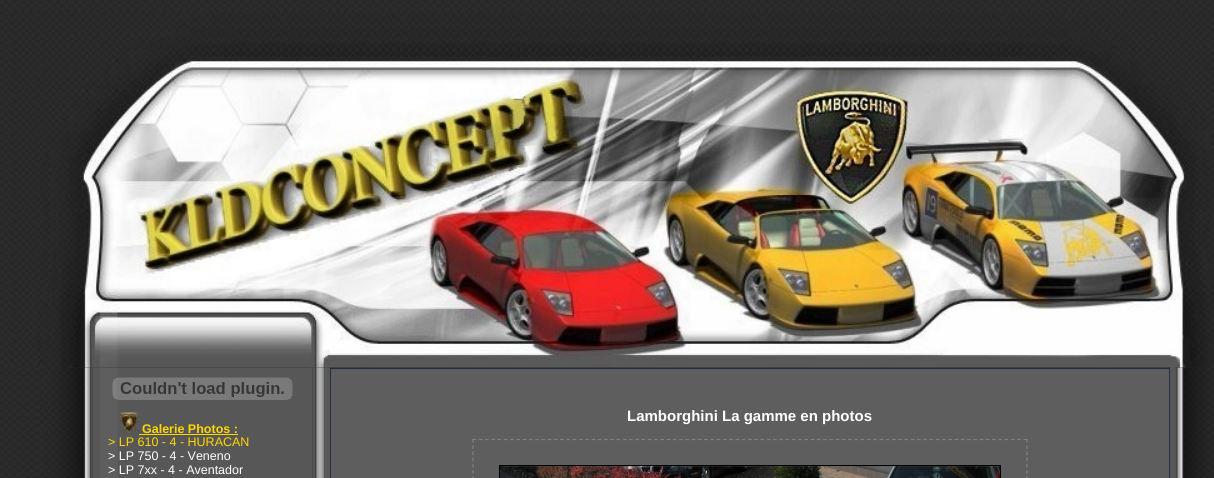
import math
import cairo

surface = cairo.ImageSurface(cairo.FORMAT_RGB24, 1214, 478)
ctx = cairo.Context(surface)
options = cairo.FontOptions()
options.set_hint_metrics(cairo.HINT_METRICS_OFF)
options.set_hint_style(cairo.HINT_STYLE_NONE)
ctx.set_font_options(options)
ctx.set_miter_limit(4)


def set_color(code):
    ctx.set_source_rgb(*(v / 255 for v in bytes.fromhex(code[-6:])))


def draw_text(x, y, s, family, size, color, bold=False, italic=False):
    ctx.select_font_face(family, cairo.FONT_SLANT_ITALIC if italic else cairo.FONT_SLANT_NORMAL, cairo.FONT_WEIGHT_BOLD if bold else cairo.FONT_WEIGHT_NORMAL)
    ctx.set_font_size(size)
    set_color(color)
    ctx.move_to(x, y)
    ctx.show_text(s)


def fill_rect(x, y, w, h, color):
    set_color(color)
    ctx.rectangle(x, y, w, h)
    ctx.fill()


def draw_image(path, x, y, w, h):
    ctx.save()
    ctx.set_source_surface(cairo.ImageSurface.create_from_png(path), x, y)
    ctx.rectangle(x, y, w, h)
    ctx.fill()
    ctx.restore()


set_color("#ffffff")
ctx.paint()
draw_image("assets/img1.png", 0, 0, 1214, 478)
draw_image("assets/img3.png", 39, 367, 54, 111)
draw_image("assets/img7.png", 92, 367, 221, 111)
draw_image("assets/img4.png", 312, 367, 18, 111)
fill_rect(1170, 367, 5, 111, "#575757")
draw_image("assets/img6.png", 1175, 367, 39, 111)
draw_image("assets/img2.png", 10, 10, 1204, 358)
fill_rect(330, 368, 840, 110, "#232d46")
fill_rect(331, 369, 838, 109, "#5e5e5e")
draw_text(627, 421, "Lamborghini La gamme en photos", "Liberation Sans", 15, "#ffffff", bold=True)
ctx.new_path()
ctx.move_to(472.5, 439.5)
ctx.line_to(1027.5, 439.5)
set_color("#808080")
ctx.set_line_width(1.2)
ctx.set_dash([3.75, 2.51])
ctx.stroke()
ctx.new_path()
ctx.move_to(1027, 439)
ctx.line_to(1027, 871)
ctx.set_dash([3.75, 2.46])
ctx.stroke()
ctx.new_path()
ctx.move_to(473, 439)
ctx.line_to(473, 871)
ctx.stroke()
ctx.rectangle(499.5, 465.5, 501, 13)
set_color("#000000")
ctx.set_line_width(1)
ctx.set_dash([])
ctx.stroke()
draw_image("assets/img5.png", 500, 466, 500, 12)
draw_image("assets/img8.png", 112, 377, 181, 23)
draw_image("assets/img9.png", 120, 412, 19, 21)
draw_text(142, 433, "Galerie Photos :", "Liberation Sans", 12.5, "#ffd700", bold=True)
fill_rect(139, 434, 99, 1, "#ffd700")
draw_text(108, 446, "> LP 610 - 4 - HURACAN", "Liberation Sans", 12.5, "#ffd700")
draw_text(108, 460, "> LP 750 - 4 - Veneno", "Liberation Sans", 12.5, "#ffffff")
draw_text(108, 474, "> LP 7xx - 4 - Aventador", "Liberation Sans", 12.5, "#ffffff")
surface.write_to_png("output.png")
